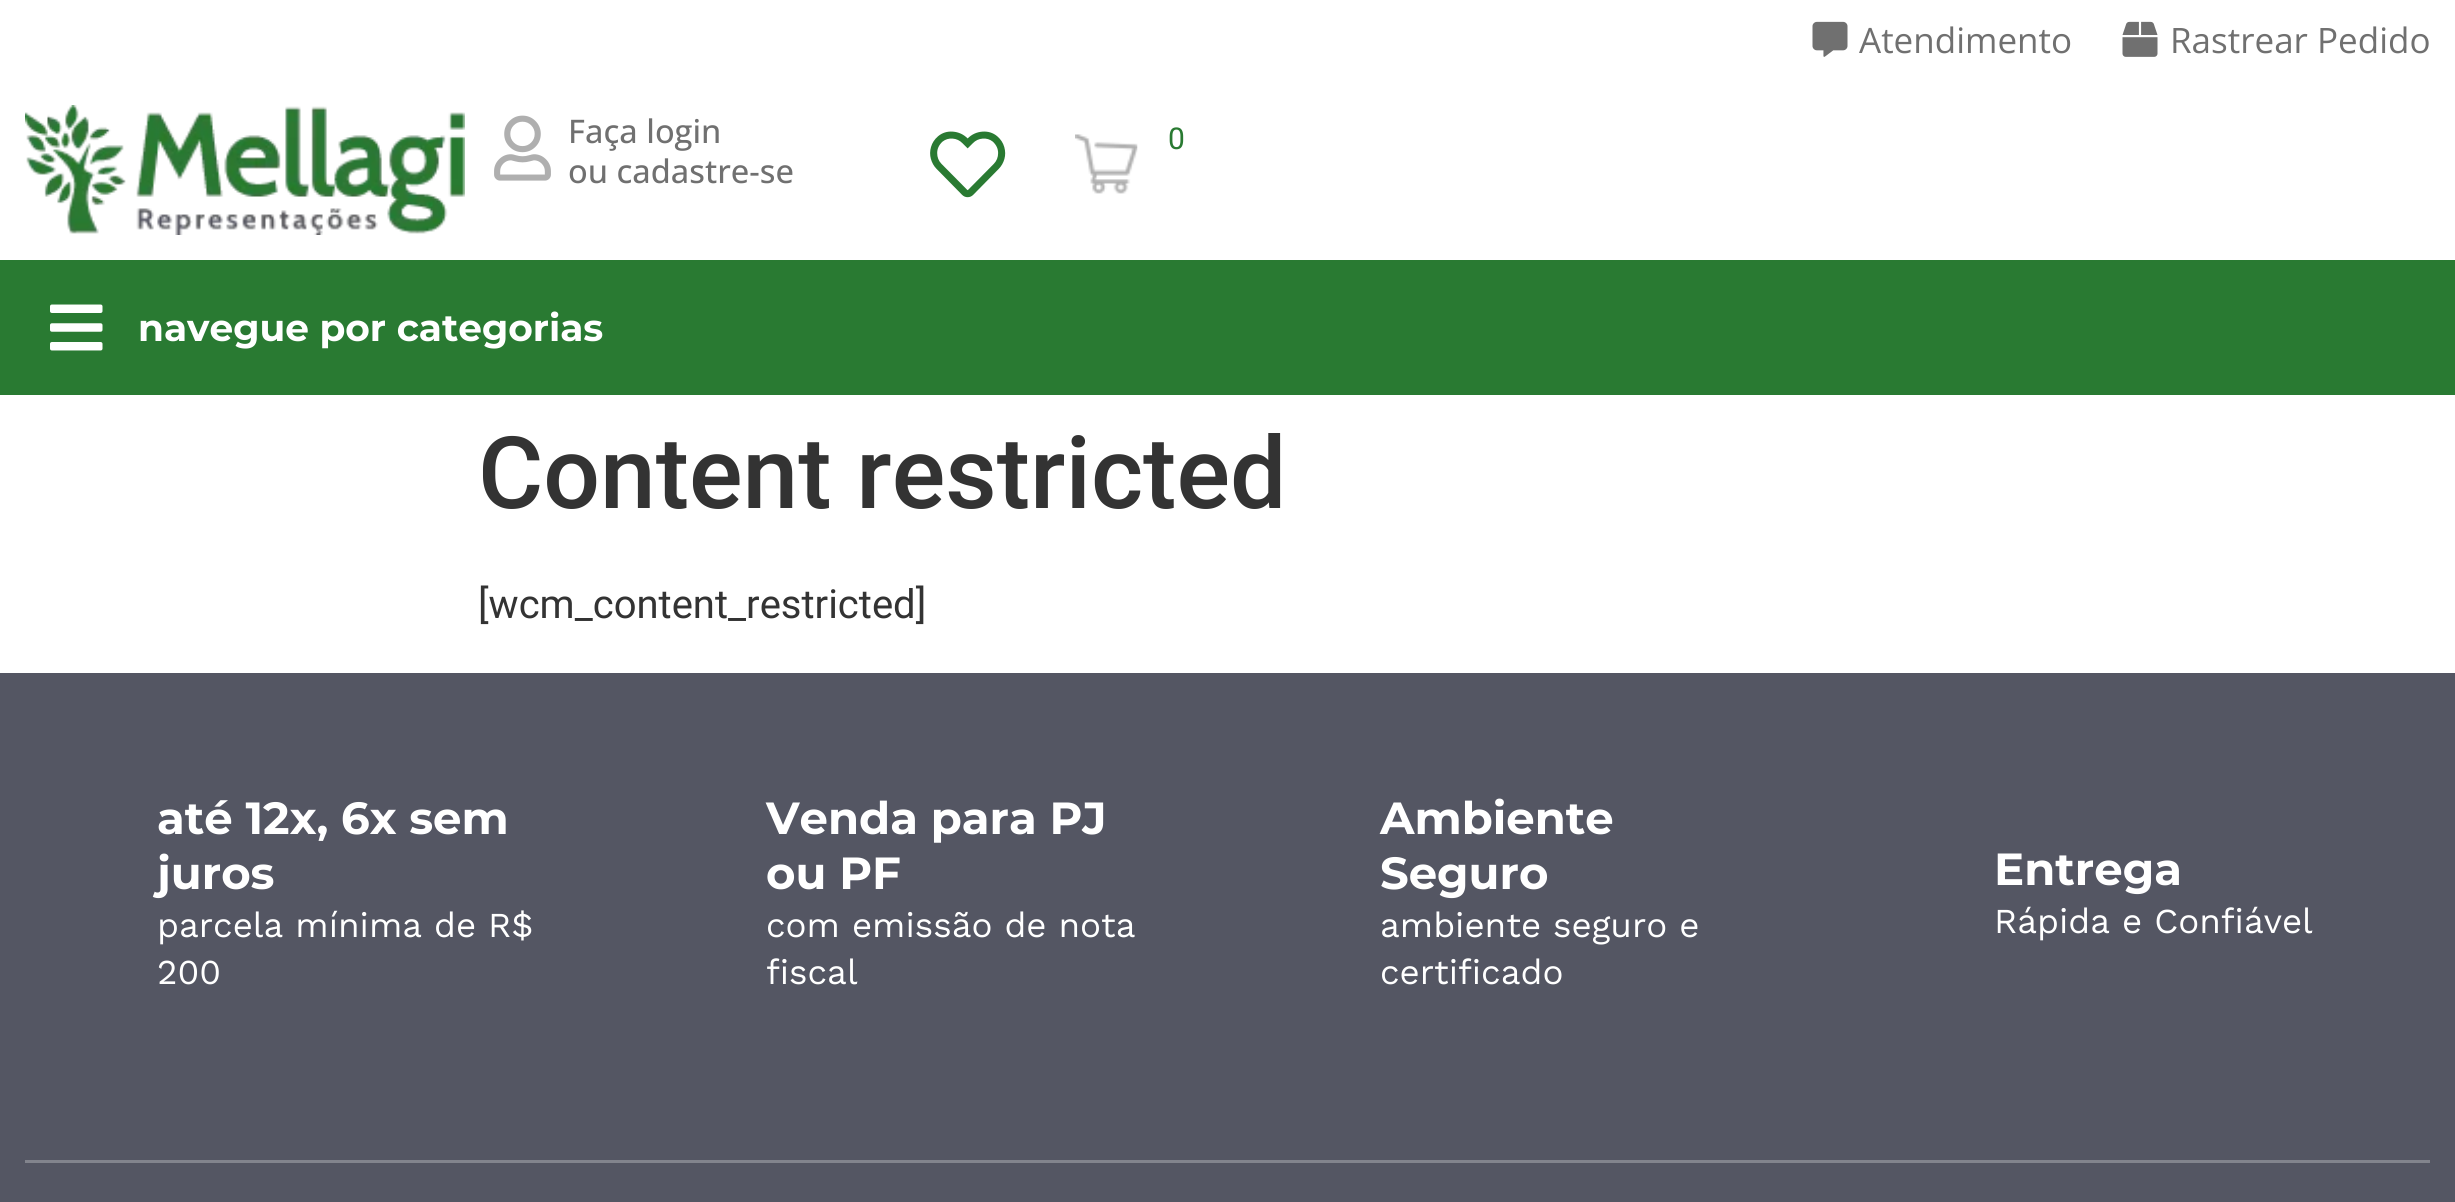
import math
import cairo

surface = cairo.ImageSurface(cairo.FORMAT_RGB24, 2455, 1202)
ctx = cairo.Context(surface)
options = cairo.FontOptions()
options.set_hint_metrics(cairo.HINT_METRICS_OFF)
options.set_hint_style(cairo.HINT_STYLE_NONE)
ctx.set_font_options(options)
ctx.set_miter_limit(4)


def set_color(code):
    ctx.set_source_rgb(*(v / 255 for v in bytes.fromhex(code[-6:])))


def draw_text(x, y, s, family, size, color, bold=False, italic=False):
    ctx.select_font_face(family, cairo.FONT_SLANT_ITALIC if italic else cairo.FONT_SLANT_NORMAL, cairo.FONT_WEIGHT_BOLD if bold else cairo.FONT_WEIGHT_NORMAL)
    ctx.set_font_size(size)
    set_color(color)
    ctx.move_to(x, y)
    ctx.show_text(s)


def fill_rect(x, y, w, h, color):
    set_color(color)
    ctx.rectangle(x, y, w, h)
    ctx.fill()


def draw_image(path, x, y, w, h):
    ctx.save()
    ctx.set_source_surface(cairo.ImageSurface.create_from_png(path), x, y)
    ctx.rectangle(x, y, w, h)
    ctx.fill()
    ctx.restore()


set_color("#ffffff")
ctx.paint()
draw_image("assets/img1.png", 1812, 21, 36, 36)
draw_text(1859, 53, "Atendimento", "Open Sans", 35, "#707070")
draw_image("assets/img2.png", 2122, 21, 36, 36)
draw_text(2170, 53, "Rastrear Pedido", "Open Sans", 35, "#707070")
draw_image("assets/img3.png", 25, 105, 440, 130)
draw_image("assets/img4.png", 494, 115, 57, 66)
draw_text(568, 143, "Faça login", "Open Sans Medium", 32.5, "#707070")
draw_text(568, 183, "ou cadastre-se", "Open Sans Medium", 32.5, "#707070")
draw_image("assets/img5.png", 930, 131, 76, 67)
draw_image("assets/img6.png", 1075, 134, 63, 60)
draw_text(1168, 149, "0", "Roboto", 30, "#297a32")
fill_rect(0, 260, 2455, 135, "#297a32")
draw_image("assets/img7.png", 50, 304, 53, 47)
draw_text(138, 341, "navegue por categorias", "Montserrat", 37.5, "#ffffff", bold=True)
draw_text(478, 508, "Content restricted", "Roboto Medium", 100, "#333333")
draw_text(478, 618, "[wcm_content_restricted]", "Roboto", 40, "#333333")
fill_rect(0, 673, 2455, 529, "#545663")
draw_text(157, 834, "até 12x, 6x sem", "Montserrat", 45, "#ffffff", bold=True)
draw_text(157, 889, "juros", "Montserrat", 45, "#ffffff", bold=True)
draw_text(157, 937, "parcela mínima de R$", "Work Sans", 35, "#ffffff")
draw_text(157, 984, "200", "Work Sans", 35, "#ffffff")
draw_text(766, 834, "Venda para PJ", "Montserrat", 45, "#ffffff", bold=True)
draw_text(766, 889, "ou PF", "Montserrat", 45, "#ffffff", bold=True)
draw_text(766, 937, "com emissão de nota", "Work Sans", 35, "#ffffff")
draw_text(766, 984, "fiscal", "Work Sans", 35, "#ffffff")
draw_text(1380, 834, "Ambiente", "Montserrat", 45, "#ffffff", bold=True)
draw_text(1380, 889, "Seguro", "Montserrat", 45, "#ffffff", bold=True)
draw_text(1380, 937, "ambiente seguro e", "Work Sans", 35, "#ffffff")
draw_text(1380, 984, "certificado", "Work Sans", 35, "#ffffff")
draw_text(1994, 885, "Entrega", "Montserrat", 45, "#ffffff", bold=True)
draw_text(1994, 933, "Rápida e Confiável", "Work Sans", 35, "#ffffff")
fill_rect(25, 1160, 2405, 3, "#82848d")
surface.write_to_png("output.png")
